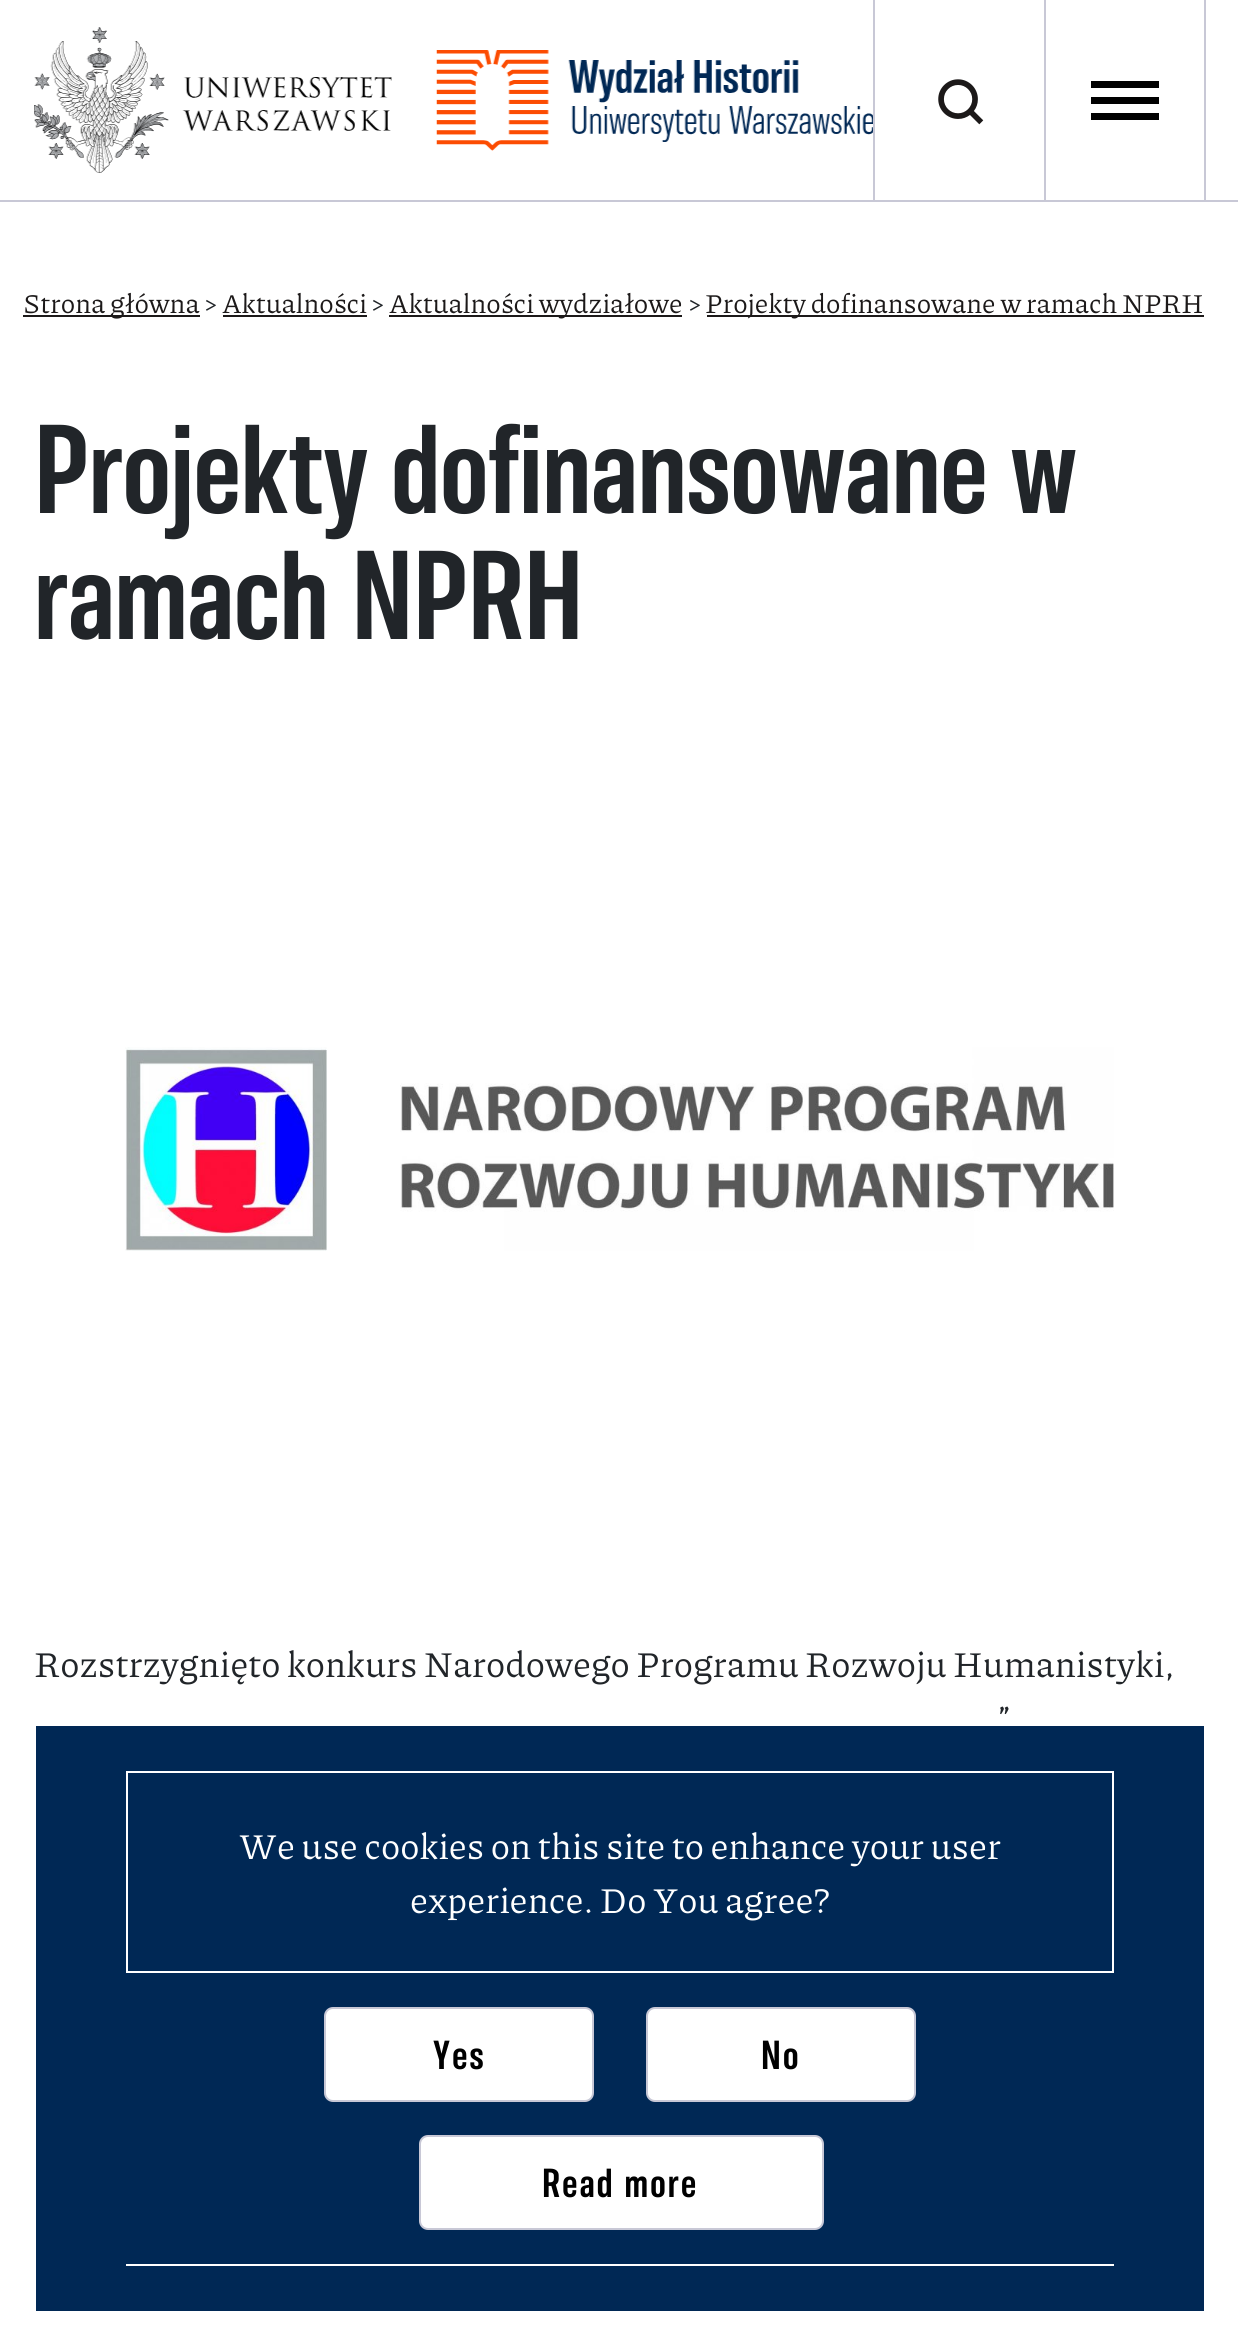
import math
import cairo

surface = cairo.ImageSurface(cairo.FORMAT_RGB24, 1238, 2345)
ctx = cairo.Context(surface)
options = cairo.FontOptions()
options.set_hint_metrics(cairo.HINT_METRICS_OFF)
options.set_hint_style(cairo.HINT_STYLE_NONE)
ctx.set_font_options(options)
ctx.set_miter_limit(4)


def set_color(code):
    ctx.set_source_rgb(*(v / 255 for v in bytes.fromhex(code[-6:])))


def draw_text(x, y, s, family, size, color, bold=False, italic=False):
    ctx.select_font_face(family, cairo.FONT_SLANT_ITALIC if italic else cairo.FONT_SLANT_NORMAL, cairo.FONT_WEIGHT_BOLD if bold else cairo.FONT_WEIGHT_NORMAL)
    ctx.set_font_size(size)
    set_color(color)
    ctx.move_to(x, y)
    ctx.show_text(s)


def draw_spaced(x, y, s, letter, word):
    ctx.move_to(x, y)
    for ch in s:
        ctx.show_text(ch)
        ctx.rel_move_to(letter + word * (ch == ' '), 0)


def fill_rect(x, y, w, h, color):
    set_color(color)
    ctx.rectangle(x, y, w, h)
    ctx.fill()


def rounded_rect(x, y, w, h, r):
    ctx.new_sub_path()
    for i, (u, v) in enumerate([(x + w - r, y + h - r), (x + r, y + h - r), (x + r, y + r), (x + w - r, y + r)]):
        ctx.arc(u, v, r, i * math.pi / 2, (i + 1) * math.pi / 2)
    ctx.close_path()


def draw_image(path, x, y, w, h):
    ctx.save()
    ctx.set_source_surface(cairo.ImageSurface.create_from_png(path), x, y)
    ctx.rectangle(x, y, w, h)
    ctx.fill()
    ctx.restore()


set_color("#ffffff")
ctx.paint()
fill_rect(23, 315, 177, 2, "#1c1919")
draw_text(23, 313, "Strona główna", "Piazzolla", 27, "#1c1919")
draw_text(204, 313, ">", "Piazzolla", 27, "#212529")
draw_text(222, 313, "Aktualności", "Piazzolla", 27, "#1c1919")
fill_rect(223, 315, 144, 2, "#1c1919")
draw_text(371, 313, ">", "Piazzolla", 27, "#212529")
fill_rect(389, 315, 293, 2, "#1c1919")
draw_text(389, 313, "Aktualności wydziałowe", "Piazzolla", 27, "#1c1919")
draw_text(688, 313, ">", "Piazzolla", 27, "#212529")
fill_rect(707, 315, 497, 2, "#1c1919")
draw_text(705, 313, "Projekty dofinansowane w ramach NPRH", "Piazzolla", 27, "#1c1919")
draw_text(34, 513, "Projekty dofinansowane w", "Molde", 126, "#212529", bold=True)
draw_text(34, 639, "ramach NPRH", "Molde", 126, "#212529", bold=True)
draw_image("assets/img1.png", 125, 1047, 989, 204)
draw_text(34, 1677, "Rozstrzygnięto konkurs Narodowego Programu Rozwoju Humanistyki,", "Piazzolla", 36, "#212529")
draw_text(997, 1731, "”", "Piazzolla", 36, "#212529")
fill_rect(0, 200, 1238, 2, "#c8c8d6")
draw_image("assets/img2.png", 34, 27, 358, 146)
draw_image("assets/img3.png", 436, 50, 437, 101)
fill_rect(1044, 0, 2, 200, "#c8c8d6")
fill_rect(873, 0, 2, 200, "#c8c8d6")
draw_image("assets/img4.png", 938, 79, 46, 46)
fill_rect(1204, 0, 2, 200, "#c8c8d6")
fill_rect(1091, 113, 68, 7, "#000000")
fill_rect(1091, 81, 68, 7, "#000000")
fill_rect(1091, 97, 68, 7, "#000000")
fill_rect(36, 1726, 1168, 585, "#002855")
ctx.rectangle(127, 1772, 986, 200)
set_color("#ffffff")
ctx.stroke()
draw_text(239, 1859, "We use cookies on this site to enhance your user", "Piazzolla", 36, "#ffffff")
draw_text(410, 1913, "experience. Do You agree?", "Piazzolla", 36, "#ffffff")
fill_rect(126, 2264, 988, 2, "#ffffff")
rounded_rect(325, 2008, 268, 93, 8)
ctx.fill_preserve()
set_color("#c8c8d6")
ctx.stroke()
ctx.select_font_face("Molde", cairo.FONT_SLANT_NORMAL, cairo.FONT_WEIGHT_BOLD)
ctx.set_font_size(40.5)
set_color("#000000")
draw_spaced(433, 2069, "Yes", 2.25, 0)
set_color("#ffffff")
rounded_rect(647, 2008, 268, 93, 8)
ctx.fill_preserve()
set_color("#c8c8d6")
ctx.stroke()
set_color("#000000")
draw_spaced(761, 2069, "No", 2.25, 0)
set_color("#ffffff")
rounded_rect(420, 2136, 403, 93, 8)
ctx.fill_preserve()
set_color("#c8c8d6")
ctx.stroke()
set_color("#000000")
draw_spaced(542, 2197, "Read more", 2.25, 0)
surface.write_to_png("output.png")
